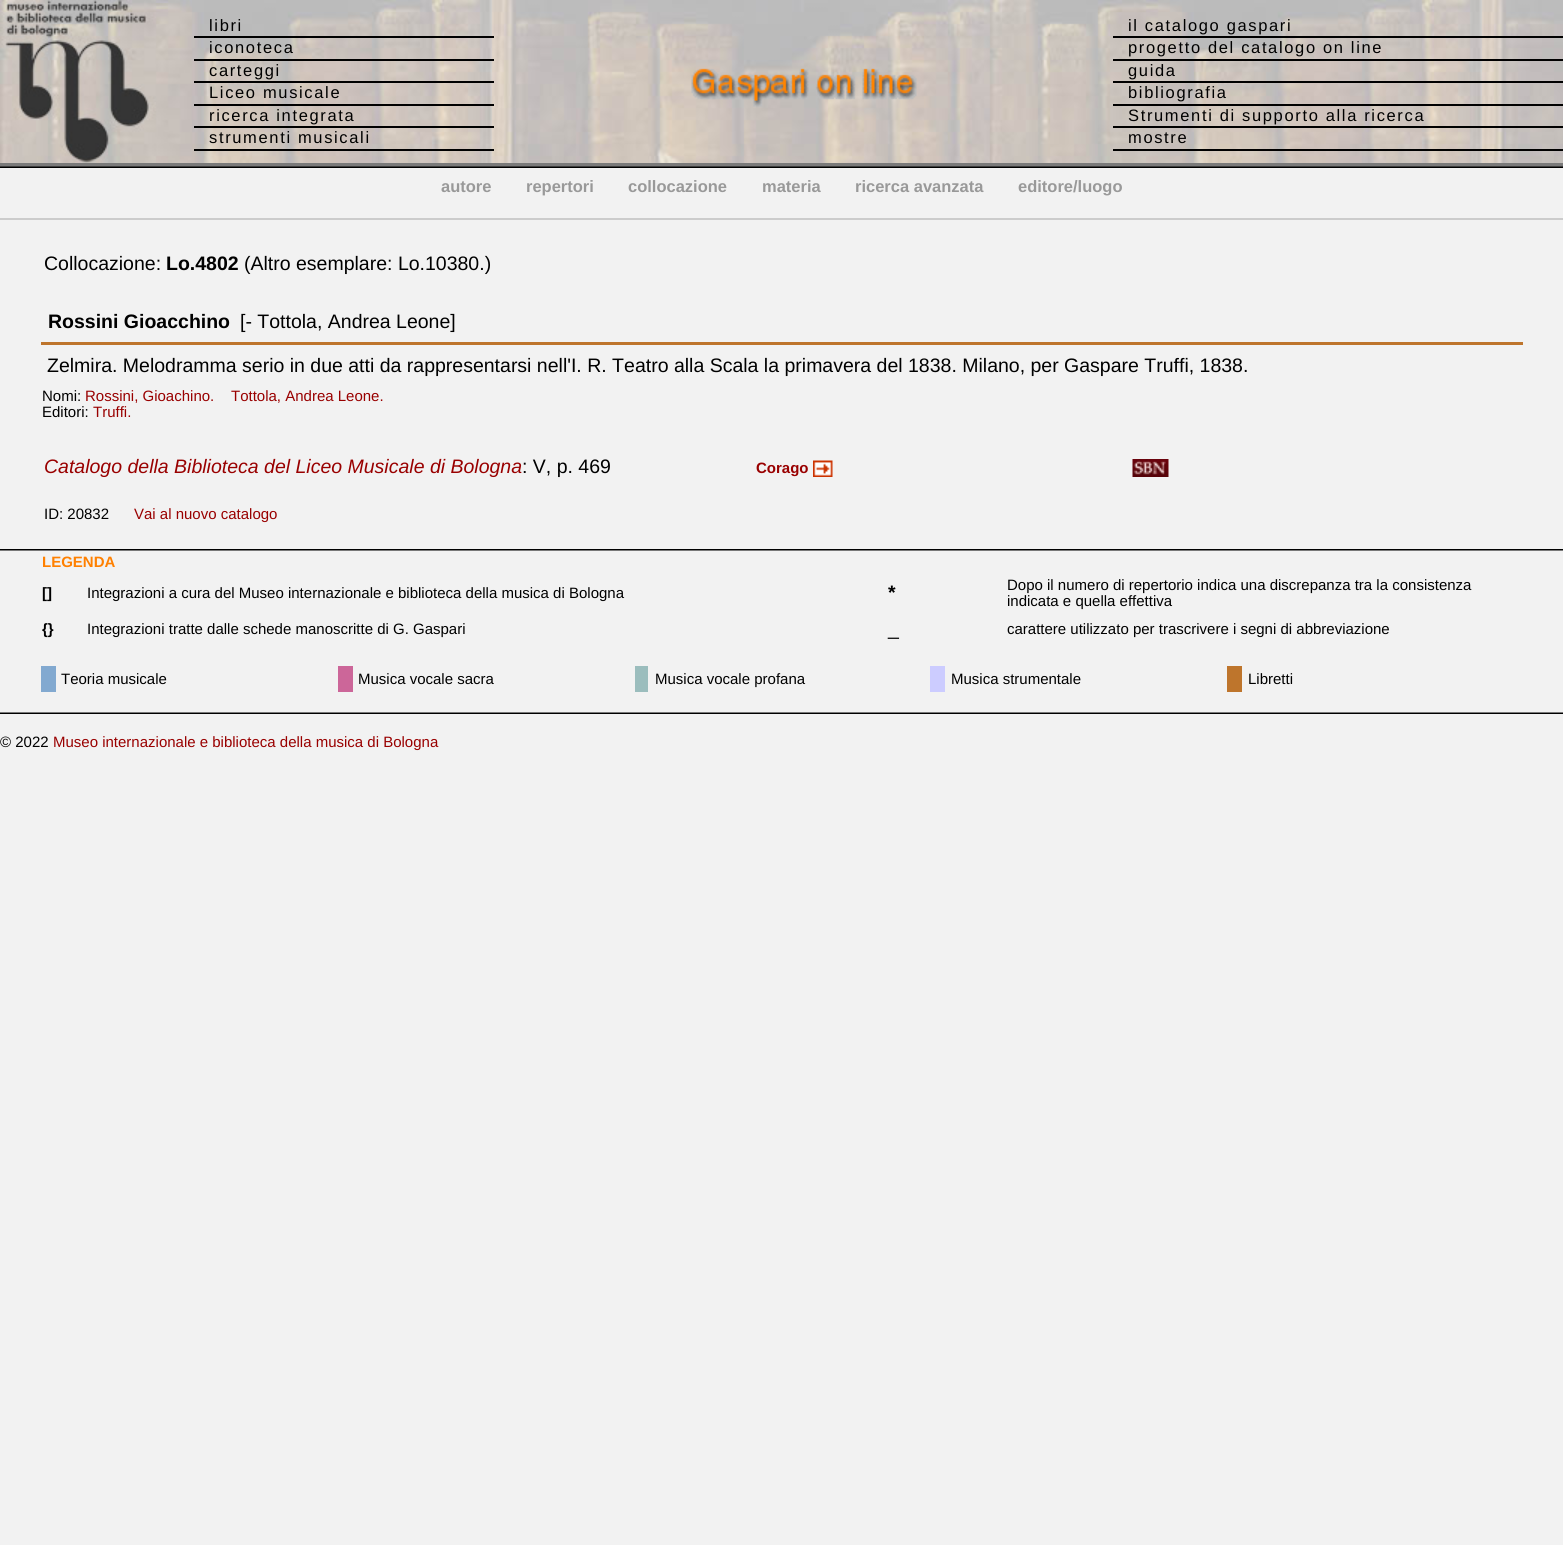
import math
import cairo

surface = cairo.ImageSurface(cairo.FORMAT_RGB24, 1563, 1545)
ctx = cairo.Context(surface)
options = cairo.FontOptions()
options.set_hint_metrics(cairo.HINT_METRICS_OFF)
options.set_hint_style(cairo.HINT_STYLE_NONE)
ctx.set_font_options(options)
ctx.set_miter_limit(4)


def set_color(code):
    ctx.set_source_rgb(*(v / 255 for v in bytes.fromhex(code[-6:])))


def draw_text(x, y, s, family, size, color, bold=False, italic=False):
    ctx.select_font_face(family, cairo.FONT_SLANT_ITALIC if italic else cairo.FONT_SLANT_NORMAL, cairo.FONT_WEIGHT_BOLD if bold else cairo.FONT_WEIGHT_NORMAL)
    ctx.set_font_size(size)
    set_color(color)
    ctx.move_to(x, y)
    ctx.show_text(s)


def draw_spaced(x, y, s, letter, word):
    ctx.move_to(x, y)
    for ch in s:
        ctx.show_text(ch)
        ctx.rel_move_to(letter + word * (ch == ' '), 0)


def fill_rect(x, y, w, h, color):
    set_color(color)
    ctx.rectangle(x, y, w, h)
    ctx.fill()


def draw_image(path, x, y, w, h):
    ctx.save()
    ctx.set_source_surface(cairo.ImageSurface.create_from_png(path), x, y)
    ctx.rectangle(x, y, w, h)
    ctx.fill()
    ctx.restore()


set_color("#f2f2f2")
ctx.paint()
draw_image("assets/img1.png", 193, 0, 1370, 163)
draw_image("assets/img2.png", 0, 0, 194, 163)
fill_rect(194, 36, 300, 2, "#000000")
ctx.select_font_face("Liberation Sans")
ctx.set_font_size(16.5)
draw_spaced(209, 31, "libri", 1.65, 0)
fill_rect(194, 59, 300, 2, "#000000")
draw_spaced(209, 53, "iconoteca", 1.65, 0)
fill_rect(194, 81, 300, 2, "#000000")
draw_spaced(209, 76, "carteggi", 1.65, 0)
fill_rect(194, 104, 300, 2, "#000000")
draw_spaced(209, 98, "Liceo musicale", 1.65, 0)
fill_rect(194, 126, 300, 2, "#000000")
draw_spaced(209, 121, "ricerca integrata", 1.65, 0)
fill_rect(194, 149, 300, 2, "#000000")
draw_spaced(209, 143, "strumenti musicali", 1.65, 0)
draw_image("assets/img3.png", 691, 68, 226, 39)
fill_rect(1113, 36, 450, 2, "#000000")
draw_spaced(1128, 31, "il catalogo gaspari", 1.65, 0)
fill_rect(1113, 59, 450, 2, "#000000")
draw_spaced(1128, 53, "progetto del catalogo on line", 1.65, 0)
fill_rect(1113, 81, 450, 2, "#000000")
draw_spaced(1128, 76, "guida", 1.65, 0)
fill_rect(1113, 104, 450, 2, "#000000")
draw_spaced(1128, 98, "bibliografia", 1.65, 0)
fill_rect(1113, 126, 450, 2, "#000000")
draw_spaced(1128, 121, "Strumenti di supporto alla ricerca", 1.65, 0)
fill_rect(1113, 149, 450, 2, "#000000")
draw_spaced(1128, 143, "mostre", 1.65, 0)
fill_rect(0, 163, 1563, 4, "#7a7a7a")
draw_image("assets/img4.png", 0, 166, 1563, 2)
fill_rect(0, 218, 1563, 2, "#cccccc")
draw_text(441, 192, "autore", "Liberation Sans", 16.5, "#999999", bold=True)
draw_text(526, 192, "repertori", "Liberation Sans", 16.5, "#999999", bold=True)
draw_text(628, 192, "collocazione", "Liberation Sans", 16.5, "#999999", bold=True)
draw_text(762, 192, "materia", "Liberation Sans", 16.5, "#999999", bold=True)
draw_text(855, 192, "ricerca avanzata", "Liberation Sans", 16.5, "#999999", bold=True)
draw_text(1018, 192, "editore/luogo", "Liberation Sans", 16.5, "#999999", bold=True)
draw_text(44, 270, "Collocazione:", "Liberation Sans", 19.5, "#000000")
draw_text(166, 270, "Lo.4802", "Liberation Sans", 19.5, "#000000", bold=True)
draw_text(244, 270, "(Altro esemplare: Lo.10380.)", "Liberation Sans", 19.5, "#000000")
draw_text(48, 328, "Rossini Gioacchino", "Liberation Sans", 19.5, "#000000", bold=True)
draw_text(240, 328, "[- Tottola, Andrea Leone]", "Liberation Sans", 19.5, "#000000")
fill_rect(41, 342, 1482, 3, "#be752c")
draw_text(47, 372, "Zelmira. Melodramma serio in due atti da rappresentarsi nell'I. R. Teatro alla Scala la primavera del 1838. Milano, per Gaspare Truffi, 1838.", "Liberation Sans", 19.5, "#000000")
draw_text(42, 401, "Nomi:", "Liberation Sans", 15, "#000000")
draw_text(85, 401, "Rossini, Gioachino.", "Liberation Sans", 15, "#990000")
draw_text(231, 401, "Tottola, Andrea Leone.", "Liberation Sans", 15, "#990000")
draw_text(42, 417, "Editori:", "Liberation Sans", 15, "#000000")
draw_text(93, 417, "Truffi.", "Liberation Sans", 15, "#990000")
draw_text(44, 473, "Catalogo della Biblioteca del Liceo Musicale di Bologna", "Liberation Sans", 19.5, "#990000", italic=True)
draw_text(522, 473, ": V, p. 469", "Liberation Sans", 19.5, "#000000")
draw_text(756, 473, "Corago", "Liberation Sans", 15, "#990000", bold=True)
draw_image("assets/img5.png", 813, 460, 20, 17)
draw_image("assets/img6.png", 1132, 459, 37, 18)
draw_text(44, 519, "ID: 20832", "Liberation Sans", 15, "#000000")
draw_text(134, 519, "Vai al nuovo catalogo", "Liberation Sans", 15, "#990000")
draw_image("assets/img7.png", 0, 549, 1563, 2)
draw_text(42, 567, "LEGENDA", "Liberation Sans", 15, "#ff8000", bold=True)
draw_text(42, 598, "[]", "Liberation Sans", 15, "#000000", bold=True)
draw_text(87, 598, "Integrazioni a cura del Museo internazionale e biblioteca della musica di Bologna", "Liberation Sans", 15, "#000000")
draw_text(888, 599, "*", "Liberation Sans", 19.5, "#000000", bold=True)
draw_text(1007, 590, "Dopo il numero di repertorio indica una discrepanza tra la consistenza", "Liberation Sans", 15, "#000000")
draw_text(1007, 606, "indicata e quella effettiva", "Liberation Sans", 15, "#000000")
draw_text(42, 634, "{}", "Liberation Sans", 15, "#000000", bold=True)
draw_text(87, 634, "Integrazioni tratte dalle schede manoscritte di G. Gaspari", "Liberation Sans", 15, "#000000")
draw_text(888, 635, "_", "Liberation Sans", 19.5, "#000000")
draw_text(1007, 634, "carattere utilizzato per trascrivere i segni di abbreviazione", "Liberation Sans", 15, "#000000")
fill_rect(41, 666, 15, 26, "#82a9d0")
draw_text(61, 684, "Teoria musicale", "Liberation Sans", 15, "#000000")
fill_rect(338, 666, 15, 26, "#cc6699")
draw_text(358, 684, "Musica vocale sacra", "Liberation Sans", 15, "#000000")
fill_rect(635, 666, 13, 26, "#9bbdbd")
draw_text(655, 684, "Musica vocale profana", "Liberation Sans", 15, "#000000")
fill_rect(930, 666, 15, 26, "#ccccff")
draw_text(951, 684, "Musica strumentale", "Liberation Sans", 15, "#000000")
fill_rect(1227, 666, 15, 26, "#be752c")
draw_text(1248, 684, "Libretti", "Liberation Sans", 15, "#000000")
draw_image("assets/img8.png", 0, 712, 1563, 2)
draw_text(0, 747, "© 2022", "Liberation Sans", 15, "#000000")
draw_text(53, 747, "Museo internazionale e biblioteca della musica di Bologna", "Liberation Sans", 15, "#990000")
surface.write_to_png("output.png")
